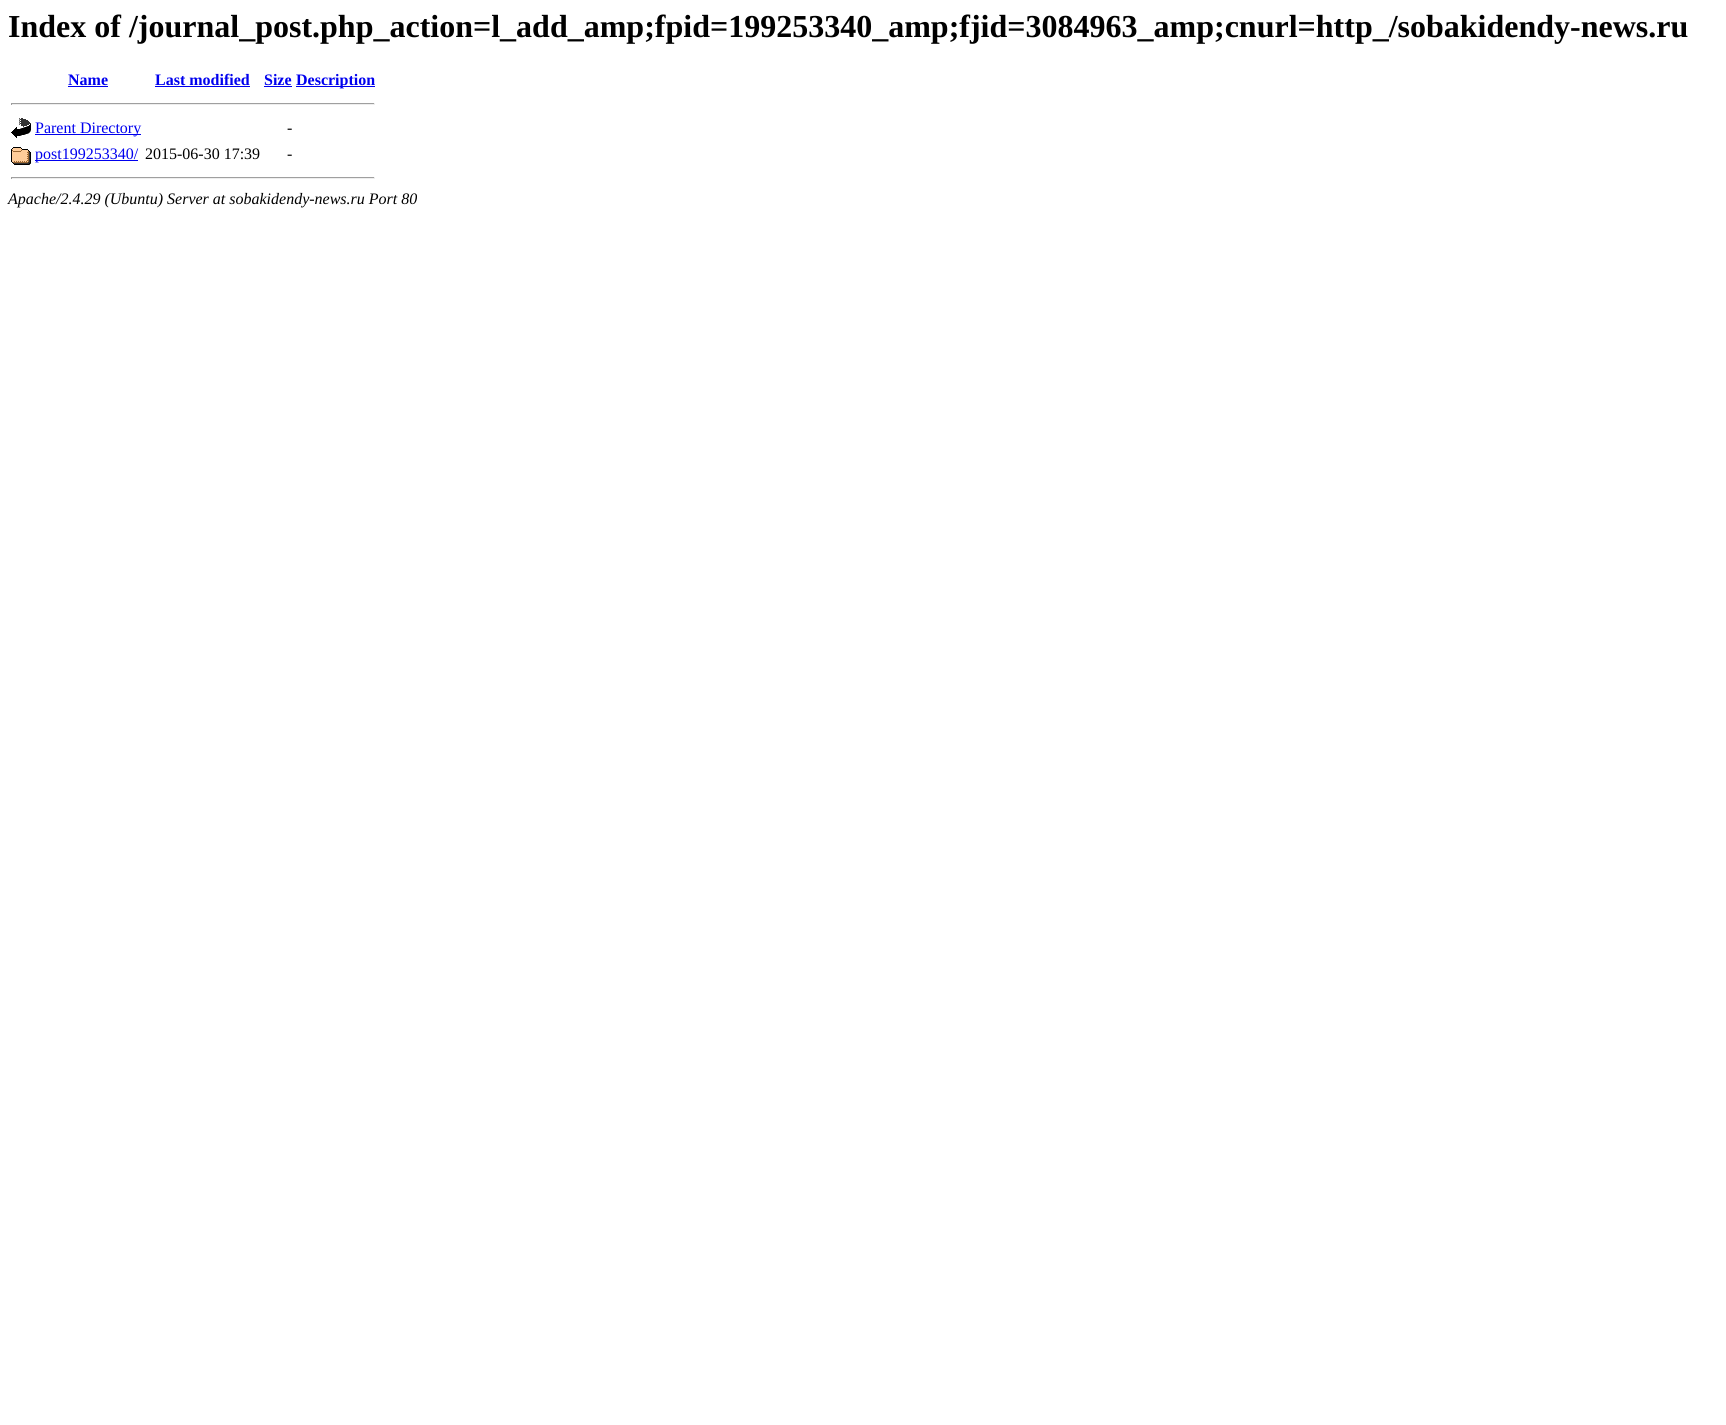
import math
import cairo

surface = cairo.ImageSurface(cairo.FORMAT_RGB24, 1726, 1425)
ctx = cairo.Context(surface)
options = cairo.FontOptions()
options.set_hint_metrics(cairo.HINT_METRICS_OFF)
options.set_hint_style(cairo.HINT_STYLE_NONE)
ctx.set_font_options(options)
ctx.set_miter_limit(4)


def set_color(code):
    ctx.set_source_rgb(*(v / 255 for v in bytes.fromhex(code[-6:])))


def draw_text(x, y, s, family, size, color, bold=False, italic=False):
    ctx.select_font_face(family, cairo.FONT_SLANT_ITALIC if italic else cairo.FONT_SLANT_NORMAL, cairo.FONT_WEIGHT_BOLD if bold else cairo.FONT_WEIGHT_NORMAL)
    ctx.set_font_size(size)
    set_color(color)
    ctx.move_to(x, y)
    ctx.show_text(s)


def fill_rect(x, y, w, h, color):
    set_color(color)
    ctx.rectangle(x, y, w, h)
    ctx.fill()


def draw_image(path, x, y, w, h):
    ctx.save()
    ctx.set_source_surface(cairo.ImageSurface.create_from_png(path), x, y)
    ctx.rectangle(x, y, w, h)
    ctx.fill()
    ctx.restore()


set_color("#ffffff")
ctx.paint()
draw_text(8, 37, "Index of /journal_post.php_action=l_add_amp;fpid=199253340_amp;fjid=3084963_amp;cnurl=http_/sobakidendy-news.ru", "Liberation Serif", 32, "#000000", bold=True)
draw_text(68, 85, "Name", "Liberation Serif", 16, "#0000ee", bold=True)
fill_rect(68, 86, 40, 1, "#0000ee")
draw_text(155, 85, "Last modified", "Liberation Serif", 16, "#0000ee", bold=True)
fill_rect(155, 86, 95, 1, "#0000ee")
draw_text(264, 85, "Size", "Liberation Serif", 16, "#0000ee", bold=True)
fill_rect(264, 86, 28, 1, "#0000ee")
fill_rect(296, 86, 79, 1, "#0000ee")
draw_text(296, 85, "Description", "Liberation Serif", 16, "#0000ee", bold=True)
fill_rect(11, 103, 364, 1, "#9f9f9f")
fill_rect(374, 103, 1, 2, "#eeeeee")
fill_rect(11, 104, 364, 1, "#eeeeee")
fill_rect(11, 103, 1, 2, "#9f9f9f")
draw_image("assets/img1.png", 11, 118, 20, 20)
fill_rect(35, 134, 106, 1, "#0000ee")
draw_text(35, 133, "Parent Directory", "Liberation Serif", 16, "#0000ee")
draw_text(287, 133, "-", "Liberation Serif", 16, "#000000")
draw_image("assets/img2.png", 11, 147, 20, 18)
fill_rect(35, 160, 103, 1, "#0000ee")
draw_text(35, 159, "post199253340/", "Liberation Serif", 16, "#0000ee")
draw_text(145, 159, "2015-06-30 17:39", "Liberation Serif", 16, "#000000")
draw_text(287, 159, "-", "Liberation Serif", 16, "#000000")
fill_rect(11, 177, 364, 1, "#9f9f9f")
fill_rect(374, 177, 1, 2, "#eeeeee")
fill_rect(11, 178, 364, 1, "#eeeeee")
fill_rect(11, 177, 1, 2, "#9f9f9f")
draw_text(8, 204, "Apache/2.4.29 (Ubuntu) Server at sobakidendy-news.ru Port 80", "Liberation Serif", 16, "#000000", italic=True)
surface.write_to_png("output.png")
